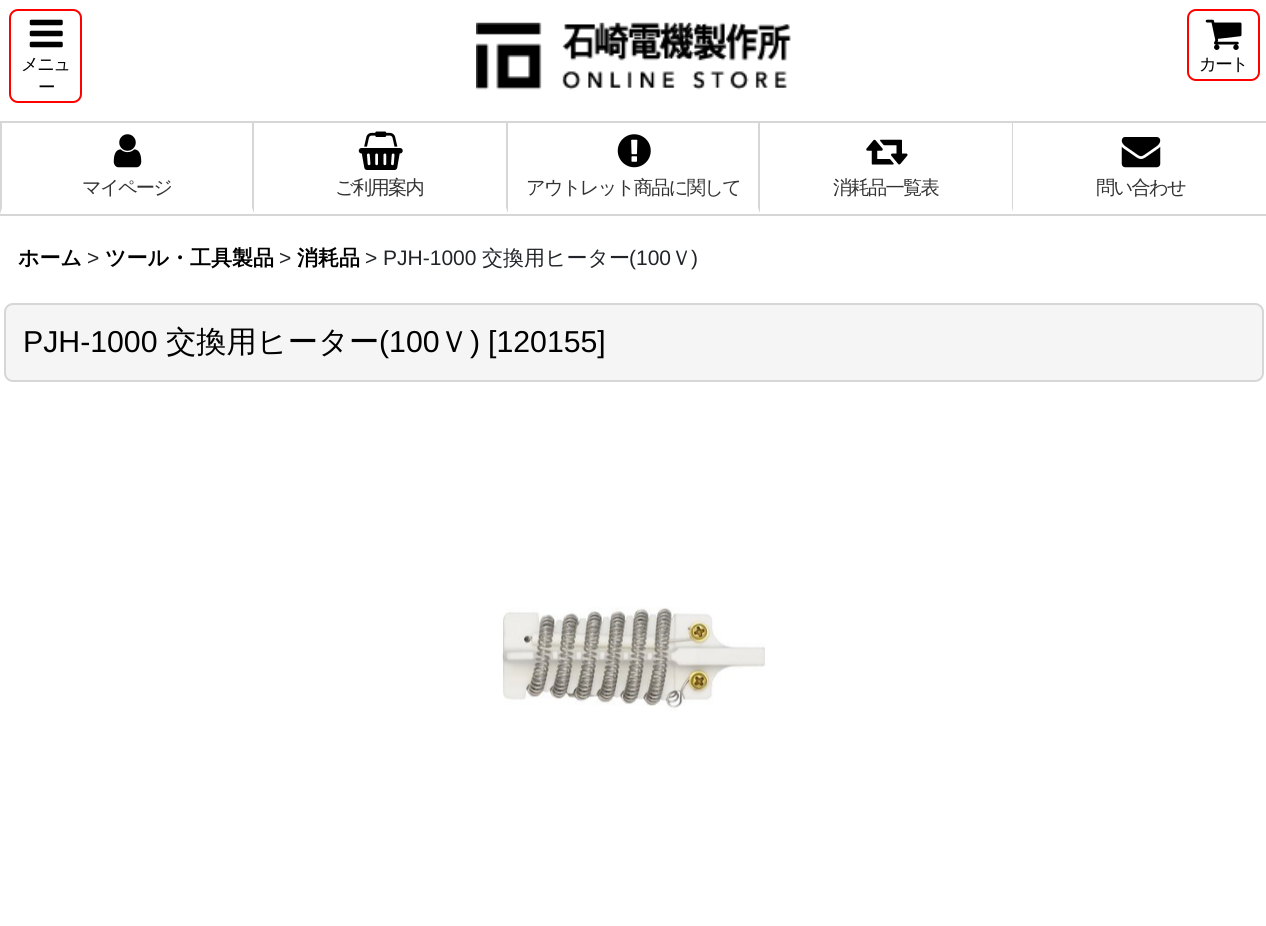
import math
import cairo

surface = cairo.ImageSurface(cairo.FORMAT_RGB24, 1266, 926)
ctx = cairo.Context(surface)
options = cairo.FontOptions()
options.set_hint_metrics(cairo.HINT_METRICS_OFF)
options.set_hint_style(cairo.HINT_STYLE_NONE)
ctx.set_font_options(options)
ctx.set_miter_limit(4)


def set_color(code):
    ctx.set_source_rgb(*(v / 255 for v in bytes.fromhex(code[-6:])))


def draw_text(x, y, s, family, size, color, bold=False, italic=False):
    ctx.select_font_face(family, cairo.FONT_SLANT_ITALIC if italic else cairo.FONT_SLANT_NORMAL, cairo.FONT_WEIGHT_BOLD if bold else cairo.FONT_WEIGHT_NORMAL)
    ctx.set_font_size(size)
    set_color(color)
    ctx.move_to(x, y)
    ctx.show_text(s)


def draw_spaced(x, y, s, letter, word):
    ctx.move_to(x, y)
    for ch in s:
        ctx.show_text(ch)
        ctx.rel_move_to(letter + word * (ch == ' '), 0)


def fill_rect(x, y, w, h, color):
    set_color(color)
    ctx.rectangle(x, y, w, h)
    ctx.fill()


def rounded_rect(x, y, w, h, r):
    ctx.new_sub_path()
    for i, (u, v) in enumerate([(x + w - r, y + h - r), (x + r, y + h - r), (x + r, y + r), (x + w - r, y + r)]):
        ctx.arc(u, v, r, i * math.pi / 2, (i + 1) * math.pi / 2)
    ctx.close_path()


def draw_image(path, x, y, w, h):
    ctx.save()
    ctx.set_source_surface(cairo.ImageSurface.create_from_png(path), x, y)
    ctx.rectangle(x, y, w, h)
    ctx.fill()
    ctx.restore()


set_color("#ffffff")
ctx.paint()
set_color("#d6d6d6")
ctx.new_path()
ctx.move_to(254, 122)
ctx.line_to(254, 214)
ctx.line_to(252, 208)
ctx.line_to(252, 122)
ctx.close_path()
ctx.fill()
set_color("#ffffff")
ctx.new_path()
ctx.move_to(254, 214)
ctx.line_to(0, 214)
ctx.line_to(2, 208)
ctx.line_to(252, 208)
ctx.close_path()
ctx.fill()
set_color("#d6d6d6")
ctx.new_path()
ctx.move_to(0, 214)
ctx.line_to(0, 122)
ctx.line_to(2, 122)
ctx.line_to(2, 208)
ctx.close_path()
ctx.fill()
ctx.new_path()
ctx.move_to(508, 122)
ctx.line_to(508, 214)
ctx.line_to(506, 208)
ctx.line_to(506, 122)
ctx.close_path()
ctx.fill()
ctx.new_path()
ctx.move_to(760, 122)
ctx.line_to(760, 214)
ctx.line_to(758, 208)
ctx.line_to(758, 122)
ctx.close_path()
ctx.fill()
ctx.new_path()
ctx.move_to(1013, 122)
ctx.line_to(1013, 214)
ctx.line_to(1012, 208)
ctx.line_to(1012, 122)
ctx.close_path()
ctx.fill()
fill_rect(0, 121, 1266, 2, "#d6d6d6")
rounded_rect(10, 10, 71, 92, 8)
set_color("#ff0000")
ctx.stroke()
draw_image("assets/img1.png", 29, 19, 34, 29)
ctx.select_font_face("WenQuanYi Zen Hei Medium")
ctx.set_font_size(17.5)
set_color("#000000")
draw_spaced(21, 70, "メニュ", -1.75, 0)
draw_spaced(38, 93, "ー", -1.75, 0)
draw_image("assets/img2.png", 476, 22, 315, 68)
rounded_rect(1188, 10, 71, 70, 8)
set_color("#ff0000")
ctx.stroke()
draw_image("assets/img3.png", 1205, 19, 37, 31)
set_color("#000000")
draw_spaced(1199, 70, "カート", -1.75, 0)
fill_rect(0, 214, 1266, 2, "#d6d6d6")
draw_image("assets/img4.png", 113, 134, 29, 34)
ctx.set_font_size(19.25)
set_color("#333333")
draw_spaced(82, 194, "マイページ", -1.75, 0)
set_color("#ffffff")
ctx.new_path()
ctx.move_to(508, 214)
ctx.line_to(254, 214)
ctx.line_to(254, 208)
ctx.line_to(506, 208)
ctx.close_path()
ctx.fill()
draw_image("assets/img5.png", 358, 131, 45, 39)
set_color("#333333")
draw_spaced(335, 194, "ご利用案内", -1.75, 0)
set_color("#ffffff")
ctx.new_path()
ctx.move_to(760, 214)
ctx.line_to(508, 214)
ctx.line_to(508, 208)
ctx.line_to(758, 208)
ctx.close_path()
ctx.fill()
draw_image("assets/img6.png", 617, 134, 34, 34)
set_color("#333333")
draw_spaced(526, 194, "アウトレット商品に関して", -1.75, 0)
set_color("#ffffff")
ctx.new_path()
ctx.move_to(1013, 214)
ctx.line_to(760, 214)
ctx.line_to(760, 208)
ctx.line_to(1012, 208)
ctx.close_path()
ctx.fill()
draw_image("assets/img7.png", 866, 139, 42, 26)
set_color("#333333")
draw_spaced(833, 194, "消耗品一覧表", -1.75, 0)
draw_image("assets/img8.png", 1121, 137, 40, 31)
draw_spaced(1096, 194, "問い合わせ", -1.75, 0)
draw_text(18, 265, "ホーム", "WenQuanYi Zen Hei", 21, "#000000", bold=True)
draw_text(87, 265, ">", "Liberation Sans", 21, "#212529")
draw_text(105, 265, "ツール・工具製品", "WenQuanYi Zen Hei", 21, "#000000", bold=True)
draw_text(279, 265, ">", "Liberation Sans", 21, "#212529")
draw_text(297, 265, "消耗品", "WenQuanYi Zen Hei", 21, "#000000", bold=True)
draw_text(365, 265, "> PJH-1000", "Liberation Sans", 21, "#212529")
draw_text(482, 265, "交換用ヒーター", "WenQuanYi Zen Hei Medium", 21, "#212529")
draw_text(629, 265, "(100", "Liberation Sans", 21, "#212529")
draw_text(671, 265, "Ｖ", "WenQuanYi Zen Hei Medium", 21, "#212529")
draw_text(691, 265, ")", "Liberation Sans", 21, "#212529")
set_color("#f5f5f5")
rounded_rect(5, 304, 1258, 77, 8)
ctx.fill_preserve()
set_color("#d6d6d6")
ctx.stroke()
draw_text(23, 352, "PJH-1000", "Liberation Sans", 30.25, "#000000")
draw_text(166, 352, "交換用ヒーター", "WenQuanYi Zen Hei Medium", 30.25, "#000000")
draw_text(379, 352, "(100", "Liberation Sans", 30.25, "#000000")
draw_text(439, 352, "Ｖ", "WenQuanYi Zen Hei Medium", 30.25, "#000000")
draw_text(470, 352, ")", "Liberation Sans", 30.25, "#000000")
draw_text(488, 352, "[120155]", "Liberation Sans", 30.25, "#000000")
draw_image("assets/img9.png", 502, 607, 264, 104)
surface.write_to_png("output.png")
